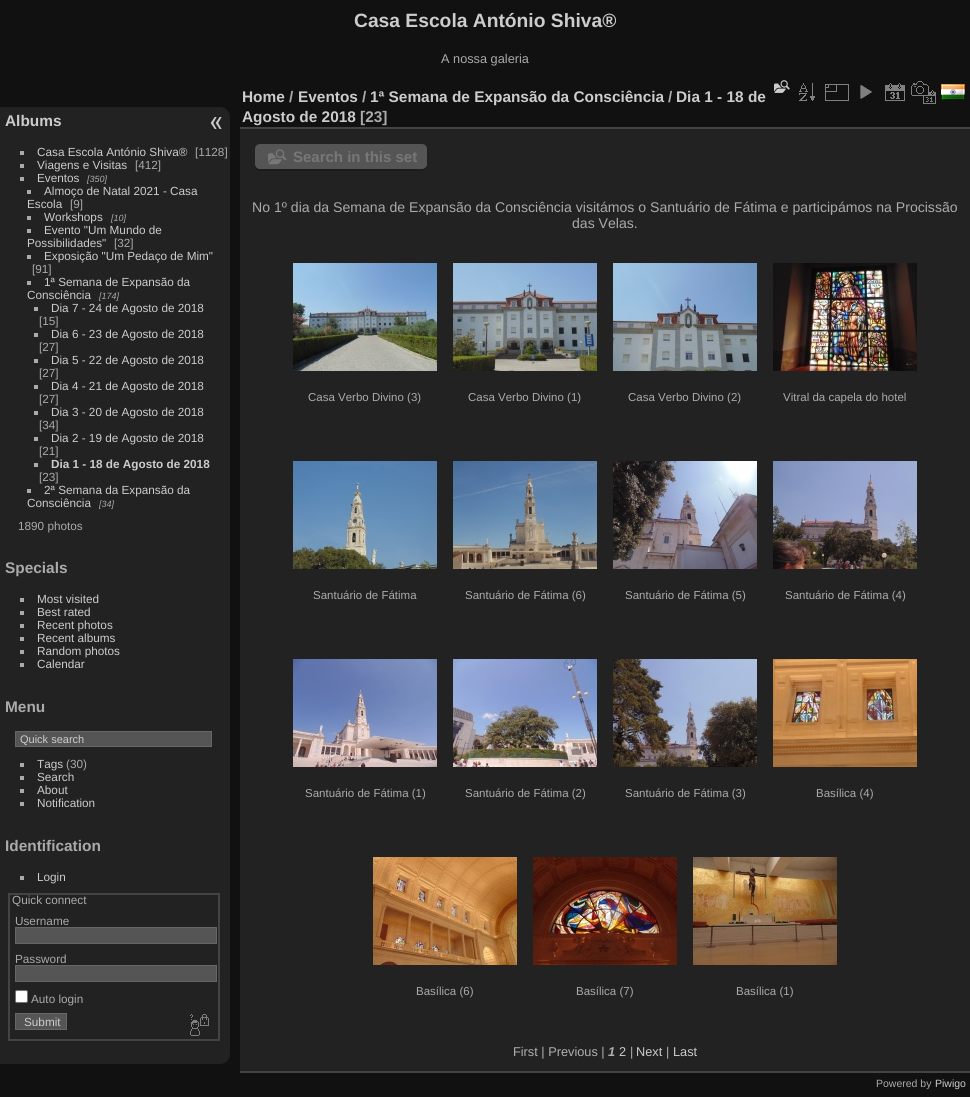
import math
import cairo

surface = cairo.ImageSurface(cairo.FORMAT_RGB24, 970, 1097)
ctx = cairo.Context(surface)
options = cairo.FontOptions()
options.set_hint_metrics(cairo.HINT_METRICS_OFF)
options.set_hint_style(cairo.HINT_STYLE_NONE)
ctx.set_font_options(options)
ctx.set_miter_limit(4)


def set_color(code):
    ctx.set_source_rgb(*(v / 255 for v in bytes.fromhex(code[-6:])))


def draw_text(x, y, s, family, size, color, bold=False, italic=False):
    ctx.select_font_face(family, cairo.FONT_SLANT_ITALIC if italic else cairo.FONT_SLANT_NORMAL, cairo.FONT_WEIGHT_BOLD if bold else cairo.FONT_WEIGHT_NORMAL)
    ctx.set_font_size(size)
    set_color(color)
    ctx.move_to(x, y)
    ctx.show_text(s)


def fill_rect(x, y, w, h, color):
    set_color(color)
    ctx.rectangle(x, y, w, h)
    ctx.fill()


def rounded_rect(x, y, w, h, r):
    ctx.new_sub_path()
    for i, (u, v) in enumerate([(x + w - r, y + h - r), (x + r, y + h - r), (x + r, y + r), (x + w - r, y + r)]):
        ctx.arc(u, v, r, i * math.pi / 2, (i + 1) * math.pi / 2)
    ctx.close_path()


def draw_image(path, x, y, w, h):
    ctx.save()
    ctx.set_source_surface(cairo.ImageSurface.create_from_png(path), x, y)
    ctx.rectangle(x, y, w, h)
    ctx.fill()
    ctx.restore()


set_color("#111111")
ctx.paint()
draw_text(354, 27, "Casa Escola António Shiva®", "Liberation Sans", 19.25, "#cccccc", bold=True)
draw_text(441, 63, "A nossa galeria", "Liberation Sans", 12.75, "#aaaaaa")
set_color("#222222")
ctx.new_path()
ctx.move_to(0, 107)
ctx.line_to(220, 107)
ctx.curve_to(225.5, 107, 230, 111.5, 230, 117)
ctx.line_to(230, 1054)
ctx.curve_to(230, 1059.5, 225.5, 1064, 220, 1064)
ctx.line_to(0, 1064)
ctx.close_path()
ctx.fill()
draw_text(5, 126, "Albums", "Liberation Sans", 15.4, "#cccccc", bold=True)
fill_rect(20, 151, 4, 4, "#aaaaaa")
draw_text(37, 156, "Casa Escola António Shiva®", "Liberation Sans", 11.75, "#cccccc")
draw_text(195, 156, "[1128]", "Liberation Sans", 11.75, "#aaaaaa")
fill_rect(20, 164, 4, 4, "#aaaaaa")
draw_text(37, 169, "Viagens e Visitas", "Liberation Sans", 11.75, "#cccccc")
draw_text(135, 169, "[412]", "Liberation Sans", 11.75, "#aaaaaa")
fill_rect(20, 177, 4, 4, "#aaaaaa")
draw_text(37, 182, "Eventos", "Liberation Sans", 11.75, "#cccccc")
draw_text(87, 182, "[350]", "Liberation Sans", 9, "#aaaaaa", italic=True)
fill_rect(27, 190, 4, 4, "#aaaaaa")
draw_text(44, 195, "Almoço de Natal 2021 - Casa", "Liberation Sans", 11.75, "#cccccc")
draw_text(27, 208, "Escola", "Liberation Sans", 11.75, "#cccccc")
draw_text(70, 208, "[9]", "Liberation Sans", 11.75, "#aaaaaa")
fill_rect(27, 216, 4, 4, "#aaaaaa")
draw_text(44, 221, "Workshops", "Liberation Sans", 11.75, "#cccccc")
draw_text(111, 221, "[10]", "Liberation Sans", 9, "#aaaaaa", italic=True)
fill_rect(27, 229, 4, 4, "#aaaaaa")
draw_text(44, 234, "Evento \"Um Mundo de", "Liberation Sans", 11.75, "#cccccc")
draw_text(27, 247, "Possibilidades\"", "Liberation Sans", 11.75, "#cccccc")
draw_text(114, 247, "[32]", "Liberation Sans", 11.75, "#aaaaaa")
fill_rect(27, 255, 4, 4, "#aaaaaa")
draw_text(44, 260, "Exposição \"Um Pedaço de Mim\"", "Liberation Sans", 11.75, "#cccccc")
draw_text(32, 273, "[91]", "Liberation Sans", 11.75, "#aaaaaa")
fill_rect(27, 281, 4, 4, "#aaaaaa")
draw_text(44, 286, "1ª Semana de Expansão da", "Liberation Sans", 11.75, "#cccccc")
draw_text(27, 299, "Consciência", "Liberation Sans", 11.75, "#cccccc")
draw_text(99, 299, "[174]", "Liberation Sans", 9, "#aaaaaa", italic=True)
fill_rect(34, 307, 4, 4, "#aaaaaa")
draw_text(51, 312, "Dia 7 - 24 de Agosto de 2018", "Liberation Sans", 11.75, "#cccccc")
draw_text(39, 325, "[15]", "Liberation Sans", 11.75, "#aaaaaa")
fill_rect(34, 333, 4, 4, "#aaaaaa")
draw_text(51, 338, "Dia 6 - 23 de Agosto de 2018", "Liberation Sans", 11.75, "#cccccc")
draw_text(39, 351, "[27]", "Liberation Sans", 11.75, "#aaaaaa")
fill_rect(34, 359, 4, 4, "#aaaaaa")
draw_text(51, 364, "Dia 5 - 22 de Agosto de 2018", "Liberation Sans", 11.75, "#cccccc")
draw_text(39, 377, "[27]", "Liberation Sans", 11.75, "#aaaaaa")
fill_rect(34, 385, 4, 4, "#aaaaaa")
draw_text(51, 390, "Dia 4 - 21 de Agosto de 2018", "Liberation Sans", 11.75, "#cccccc")
draw_text(39, 403, "[27]", "Liberation Sans", 11.75, "#aaaaaa")
fill_rect(34, 411, 4, 4, "#aaaaaa")
draw_text(51, 416, "Dia 3 - 20 de Agosto de 2018", "Liberation Sans", 11.75, "#cccccc")
draw_text(39, 429, "[34]", "Liberation Sans", 11.75, "#aaaaaa")
fill_rect(34, 437, 4, 4, "#aaaaaa")
draw_text(51, 442, "Dia 2 - 19 de Agosto de 2018", "Liberation Sans", 11.75, "#cccccc")
draw_text(39, 455, "[21]", "Liberation Sans", 11.75, "#aaaaaa")
fill_rect(34, 463, 4, 4, "#aaaaaa")
draw_text(51, 468, "Dia 1 - 18 de Agosto de 2018", "Liberation Sans", 11.75, "#cccccc", bold=True)
draw_text(39, 481, "[23]", "Liberation Sans", 11.75, "#aaaaaa")
fill_rect(27, 489, 4, 4, "#aaaaaa")
draw_text(44, 494, "2ª Semana da Expansão da", "Liberation Sans", 11.75, "#cccccc")
draw_text(27, 507, "Consciência", "Liberation Sans", 11.75, "#cccccc")
draw_text(99, 507, "[34]", "Liberation Sans", 9, "#aaaaaa", italic=True)
draw_text(18, 530, "1890 photos", "Liberation Sans", 11.75, "#aaaaaa")
draw_text(5, 573, "Specials", "Liberation Sans", 15.4, "#aaaaaa", bold=True)
fill_rect(20, 598, 4, 4, "#aaaaaa")
draw_text(37, 603, "Most visited", "Liberation Sans", 11.75, "#cccccc")
fill_rect(20, 611, 4, 4, "#aaaaaa")
draw_text(37, 616, "Best rated", "Liberation Sans", 11.75, "#cccccc")
fill_rect(20, 624, 4, 4, "#aaaaaa")
draw_text(37, 629, "Recent photos", "Liberation Sans", 11.75, "#cccccc")
fill_rect(20, 637, 4, 4, "#aaaaaa")
draw_text(37, 642, "Recent albums", "Liberation Sans", 11.75, "#cccccc")
fill_rect(20, 650, 4, 4, "#aaaaaa")
draw_text(37, 655, "Random photos", "Liberation Sans", 11.75, "#cccccc")
fill_rect(20, 663, 4, 4, "#aaaaaa")
draw_text(37, 668, "Calendar", "Liberation Sans", 11.75, "#cccccc")
draw_text(5, 712, "Menu", "Liberation Sans", 15.4, "#aaaaaa", bold=True)
set_color("#555555")
ctx.rectangle(15.5, 731.5, 196, 15)
ctx.fill_preserve()
set_color("#666666")
ctx.set_line_width(1)
ctx.stroke()
draw_text(20, 743, "Quick search", "Liberation Sans", 11, "#cccccc")
fill_rect(20, 763, 4, 4, "#aaaaaa")
draw_text(37, 768, "Tags", "Liberation Sans", 11.75, "#cccccc")
draw_text(66, 768, "(30)", "Liberation Sans", 11.75, "#aaaaaa")
fill_rect(20, 776, 4, 4, "#aaaaaa")
draw_text(37, 781, "Search", "Liberation Sans", 11.75, "#cccccc")
fill_rect(20, 789, 4, 4, "#aaaaaa")
draw_text(37, 794, "About", "Liberation Sans", 11.75, "#cccccc")
fill_rect(20, 802, 4, 4, "#aaaaaa")
draw_text(37, 807, "Notification", "Liberation Sans", 11.75, "#cccccc")
draw_text(5, 851, "Identification", "Liberation Sans", 15.4, "#aaaaaa", bold=True)
fill_rect(20, 876, 4, 4, "#aaaaaa")
draw_text(37, 881, "Login", "Liberation Sans", 11.75, "#cccccc")
ctx.rectangle(9, 894, 210, 146)
set_color("#444444")
ctx.set_line_width(2)
ctx.stroke()
draw_text(12, 904, "Quick connect", "Liberation Sans", 11.75, "#aaaaaa")
draw_text(15, 925, "Username", "Liberation Sans", 11.75, "#aaaaaa")
set_color("#555555")
ctx.rectangle(15.5, 927.5, 201, 16)
ctx.fill_preserve()
set_color("#666666")
ctx.set_line_width(1)
ctx.stroke()
draw_text(15, 963, "Password", "Liberation Sans", 11.75, "#aaaaaa")
set_color("#555555")
ctx.rectangle(15.5, 965.5, 201, 16)
ctx.fill_preserve()
set_color("#666666")
ctx.stroke()
set_color("#ffffff")
rounded_rect(15.5, 990.5, 12, 12, 1.5)
ctx.fill_preserve()
set_color("#767676")
ctx.stroke()
draw_text(31, 1003, "Auto login", "Liberation Sans", 11.75, "#aaaaaa")
set_color("#555555")
ctx.rectangle(15.5, 1013.5, 51, 16)
ctx.fill_preserve()
set_color("#666666")
ctx.stroke()
draw_text(24, 1026, "Submit", "Liberation Sans", 11.75, "#cccccc")
draw_image("assets/img1.png", 190, 1014, 19, 22)
fill_rect(240, 129, 730, 942, "#222222")
fill_rect(240, 1071, 730, 2, "#444444")
fill_rect(240, 127, 730, 2, "#444444")
draw_text(242, 102, "Home", "Liberation Sans", 15.4, "#cccccc", bold=True)
draw_text(289, 102, "/", "Liberation Sans", 15.4, "#aaaaaa", bold=True)
draw_text(298, 102, "Eventos", "Liberation Sans", 15.4, "#cccccc", bold=True)
draw_text(362, 102, "/", "Liberation Sans", 15.4, "#aaaaaa", bold=True)
draw_text(370, 102, "1ª Semana de Expansão da Consciência", "Liberation Sans", 15.4, "#cccccc", bold=True)
draw_text(668, 102, "/", "Liberation Sans", 15.4, "#aaaaaa", bold=True)
draw_text(676, 102, "Dia 1 - 18 de", "Liberation Sans", 15.4, "#cccccc", bold=True)
draw_text(242, 122, "Agosto de 2018", "Liberation Sans", 15.4, "#cccccc", bold=True)
draw_text(360, 122, "[23]", "Liberation Sans", 15.4, "#aaaaaa", bold=True)
draw_image("assets/img2.png", 774, 80, 16, 13)
draw_image("assets/img3.png", 799, 83, 16, 18)
draw_image("assets/img4.png", 825, 84, 24, 17)
draw_image("assets/img5.png", 860, 85, 12, 14)
draw_image("assets/img6.png", 885, 83, 20, 18)
draw_image("assets/img7.png", 911, 81, 25, 23)
draw_image("assets/img8.png", 941, 84, 24, 16)
set_color("#1d1d1d")
ctx.new_path()
ctx.move_to(255, 164)
ctx.line_to(255, 166)
ctx.curve_to(255, 169, 257, 171, 260, 171)
ctx.line_to(422, 171)
ctx.curve_to(425, 171, 427, 169, 427, 166)
ctx.line_to(427, 164)
ctx.curve_to(427, 167, 425, 169, 422, 169)
ctx.line_to(260, 169)
ctx.curve_to(257, 169, 255, 167, 255, 164)
ctx.close_path()
ctx.fill()
set_color("#555555")
rounded_rect(255, 144, 172, 25, 5)
ctx.fill()
draw_image("assets/img9.png", 268, 149, 19, 16)
draw_text(293, 162, "Search in this set", "Liberation Sans", 15, "#777777", bold=True)
draw_text(252, 212, "No 1º dia da Semana de Expansão da Consciência visitámos o Santuário de Fátima e participámos na Procissão", "Liberation Sans", 14.08, "#aaaaaa")
draw_text(572, 228, "das Velas.", "Liberation Sans", 14.08, "#aaaaaa")
draw_image("assets/img10.png", 293, 263, 144, 108)
draw_text(308, 401, "Casa Verbo Divino (3)", "Liberation Sans", 11.5, "#aaaaaa")
draw_image("assets/img11.png", 453, 263, 144, 108)
draw_text(468, 401, "Casa Verbo Divino (1)", "Liberation Sans", 11.5, "#aaaaaa")
draw_image("assets/img12.png", 613, 263, 144, 108)
draw_text(628, 401, "Casa Verbo Divino (2)", "Liberation Sans", 11.5, "#aaaaaa")
draw_image("assets/img13.png", 773, 263, 144, 108)
draw_text(783, 401, "Vitral da capela do hotel", "Liberation Sans", 11.5, "#aaaaaa")
draw_image("assets/img14.png", 293, 461, 144, 108)
draw_text(313, 599, "Santuário de Fátima", "Liberation Sans", 11.5, "#aaaaaa")
draw_image("assets/img15.png", 453, 461, 144, 108)
draw_text(465, 599, "Santuário de Fátima (6)", "Liberation Sans", 11.5, "#aaaaaa")
draw_image("assets/img16.png", 613, 461, 144, 108)
draw_text(625, 599, "Santuário de Fátima (5)", "Liberation Sans", 11.5, "#aaaaaa")
draw_image("assets/img17.png", 773, 461, 144, 108)
draw_text(785, 599, "Santuário de Fátima (4)", "Liberation Sans", 11.5, "#aaaaaa")
draw_image("assets/img18.png", 293, 659, 144, 108)
draw_text(305, 797, "Santuário de Fátima (1)", "Liberation Sans", 11.5, "#aaaaaa")
draw_image("assets/img19.png", 453, 659, 144, 108)
draw_text(465, 797, "Santuário de Fátima (2)", "Liberation Sans", 11.5, "#aaaaaa")
draw_image("assets/img20.png", 613, 659, 144, 108)
draw_text(625, 797, "Santuário de Fátima (3)", "Liberation Sans", 11.5, "#aaaaaa")
draw_image("assets/img21.png", 773, 659, 144, 108)
draw_text(816, 797, "Basílica (4)", "Liberation Sans", 11.5, "#aaaaaa")
draw_image("assets/img22.png", 373, 857, 144, 108)
draw_text(416, 995, "Basílica (6)", "Liberation Sans", 11.5, "#aaaaaa")
draw_image("assets/img23.png", 533, 857, 144, 108)
draw_text(576, 995, "Basílica (7)", "Liberation Sans", 11.5, "#aaaaaa")
draw_image("assets/img24.png", 693, 857, 144, 108)
draw_text(736, 995, "Basílica (1)", "Liberation Sans", 11.5, "#aaaaaa")
draw_text(513, 1056, "First | Previous |", "Liberation Sans", 12.75, "#b0b0b0")
draw_text(608, 1056, "1", "Liberation Sans", 12.75, "#b0b0b0", bold=True, italic=True)
draw_text(619, 1056, "2", "Liberation Sans", 12.75, "#cccccc")
draw_text(630, 1056, "|", "Liberation Sans", 12.75, "#b0b0b0")
draw_text(636, 1056, "Next", "Liberation Sans", 12.75, "#cccccc")
draw_text(666, 1056, "|", "Liberation Sans", 12.75, "#b0b0b0")
draw_text(673, 1056, "Last", "Liberation Sans", 12.75, "#cccccc")
draw_image("assets/img25.png", 210, 117, 12, 12)
draw_text(876, 1087, "Powered by", "Liberation Sans", 10.5, "#aaaaaa")
draw_text(935, 1087, "Piwigo", "Liberation Sans", 10.5, "#cccccc")
surface.write_to_png("output.png")
